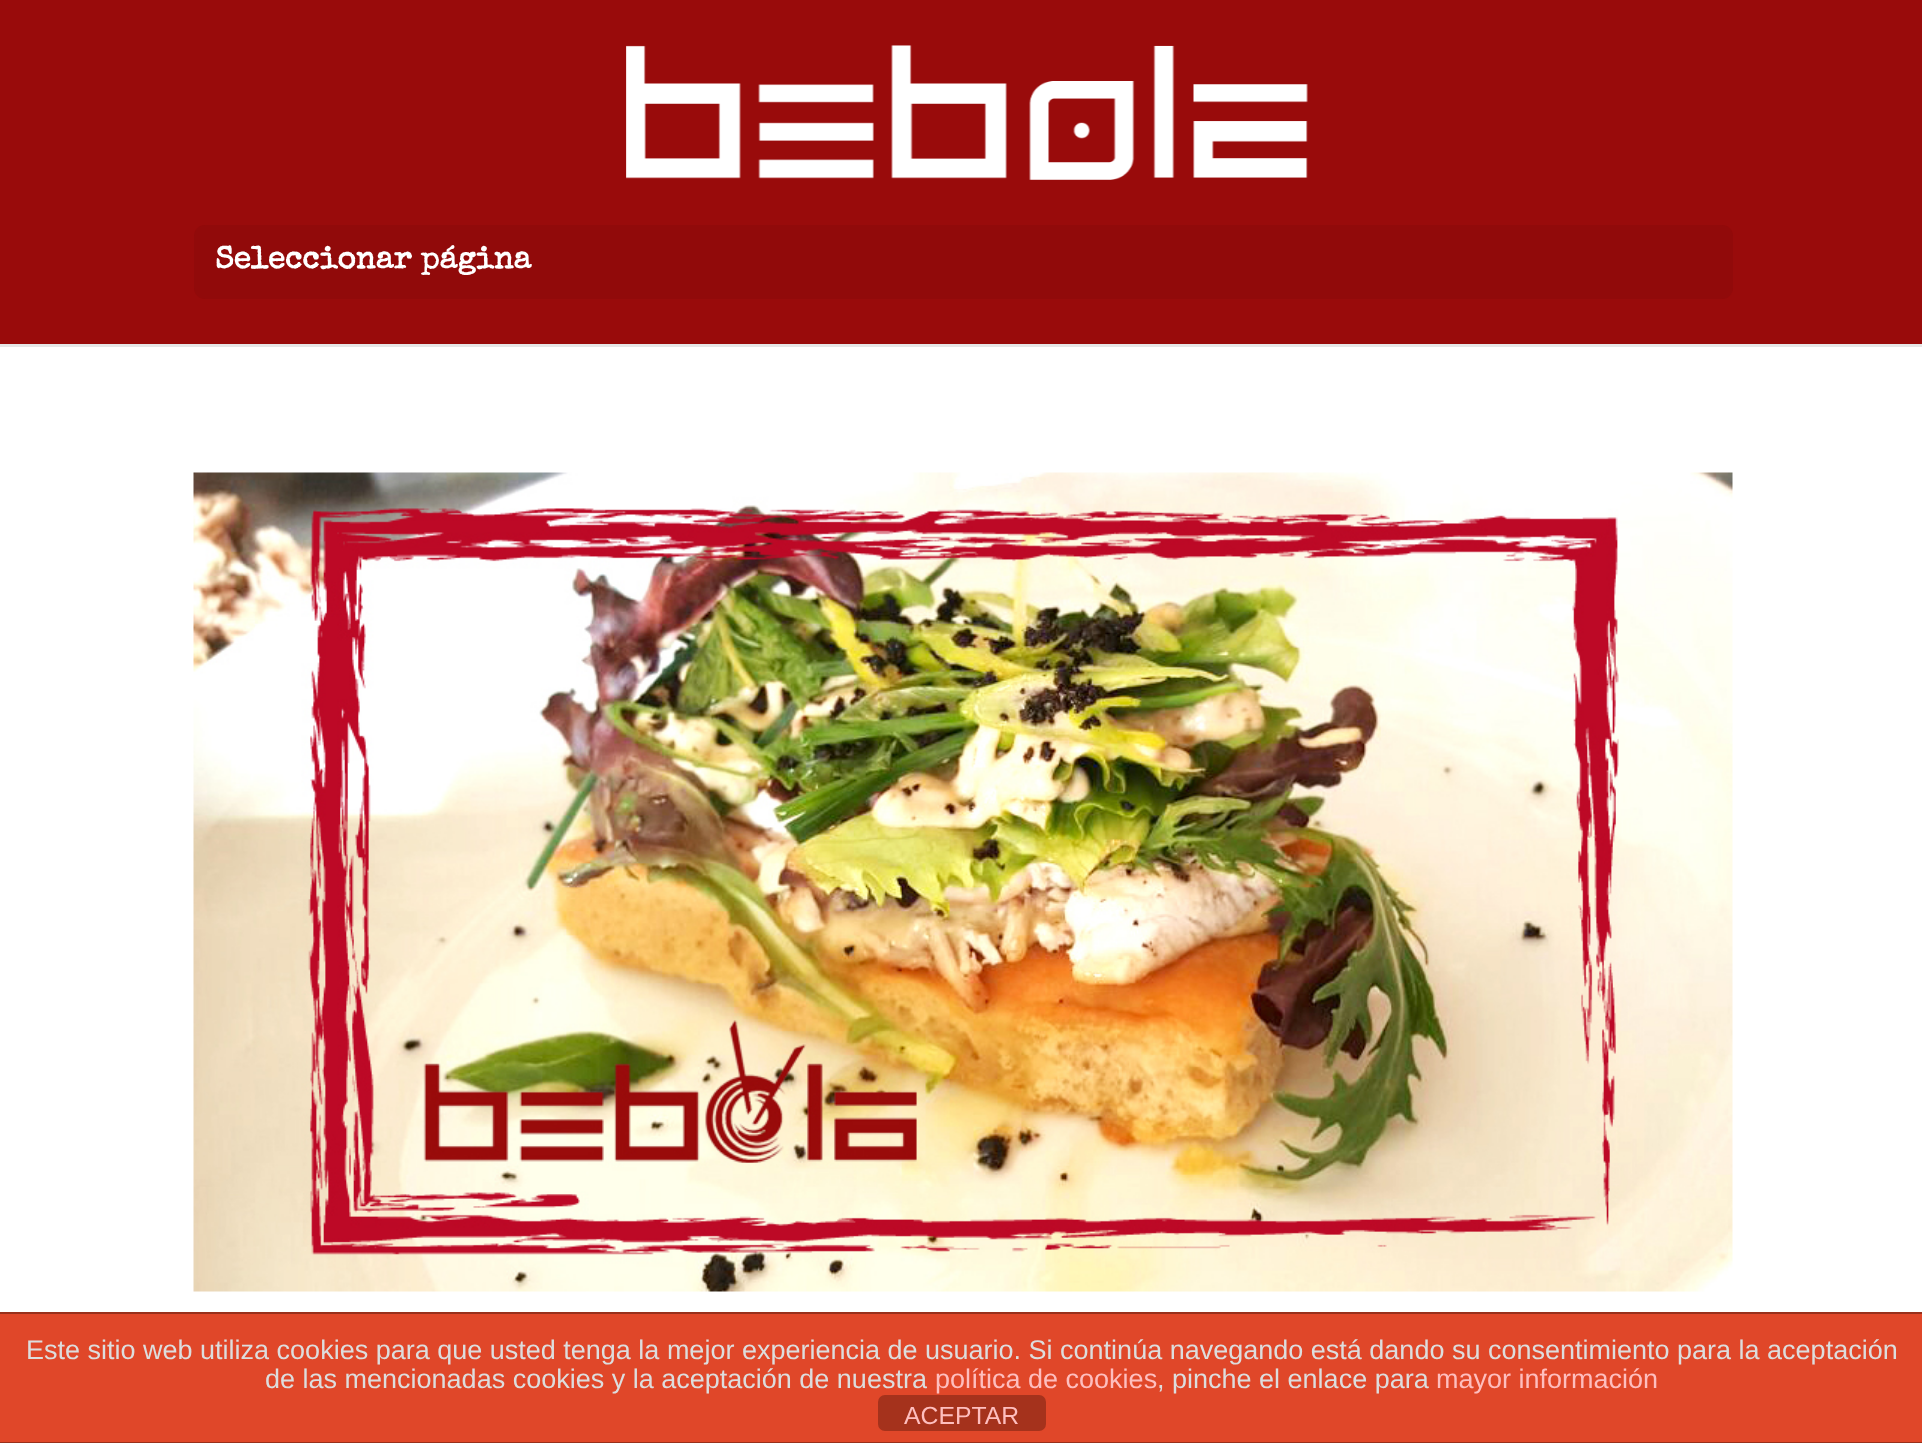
<!DOCTYPE html>
<meta charset="utf-8">
<style>body { margin: 0 } canvas { display: block }</style>
<canvas id="canvas" width="1922" height="1443"></canvas>
<script type="module">
  const canvas = document.getElementById("canvas");
  const g = canvas.getContext("2d");
  g.miterLimit = 4;
  g.fontKerning = "normal";
  function drawText(s, x, y, [font, color]) {
    g.font = font;
    g.fillStyle = color;
    g.fillText(s, x, y);
  }
  function fillBox(x, y, w, h, color) {
    g.fillStyle = color;
    g.fillRect(x, y, w, h);
  }
  function fillRounded(x, y, w, h, r, color) {
    g.fillStyle = color;
    g.beginPath();
    g.roundRect(x, y, w, h, r);
    g.fill();
  }
  async function drawPicture(src, x, y, w, h) {
    const img = new Image();
    img.src = src;
    await img.decode();
    g.drawImage(img, x, y, w, h);
  }

  const s1 = ["bold 31.5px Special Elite", "#FFFFFF"];
  const s2 = ["27px Liberation Sans", "#DDDDDD"];
  const s3 = ["27px Liberation Sans", "#FEBEBE"];
  const s4 = ["24.75px Liberation Sans", "#FEBEBE"];

  fillBox(0, 0, 1922, 1443, "#FFFFFF");
  g.fillStyle = "#E6E6E6";
  g.beginPath();
  g.moveTo(0, 344);
  g.lineTo(0, 347);
  g.lineTo(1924, 347);
  g.lineTo(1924, 2);
  g.lineTo(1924, 344);
  g.closePath();
  g.fill();
  fillBox(0, 0, 1922, 344, "#990B0B");
  await drawPicture("pic1.png", 626, 45, 682, 135);
  fillRounded(194, 225, 1539, 74, 11, "#910A0A");
  drawText("Seleccionar página", 215, 268, s1);
  await drawPicture("pic2.png", 193, 472, 1540, 820);
  fillBox(0, 1314, 1922, 128, "#E04729");
  fillBox(0, 1312, 1922, 2, "#99301B");
  fillBox(0, 1442, 1922, 1, "#99301B");
  drawText("Este sitio web utiliza cookies para que usted tenga la mejor experiencia de usuario. Si continúa navegando está dando su consentimiento para la aceptación", 26, 1359, s2);
  drawText("de las mencionadas cookies y la aceptación de nuestra", 265, 1388, s2);
  drawText("política de cookies", 935, 1388, s3);
  drawText(", pinche el enlace para", 1157, 1388, s2);
  drawText("mayor información", 1436, 1388, s3);
  fillRounded(878, 1395, 168, 36, 7, "#A5321C");
  drawText("ACEPTAR", 904, 1424, s4);
</script>
